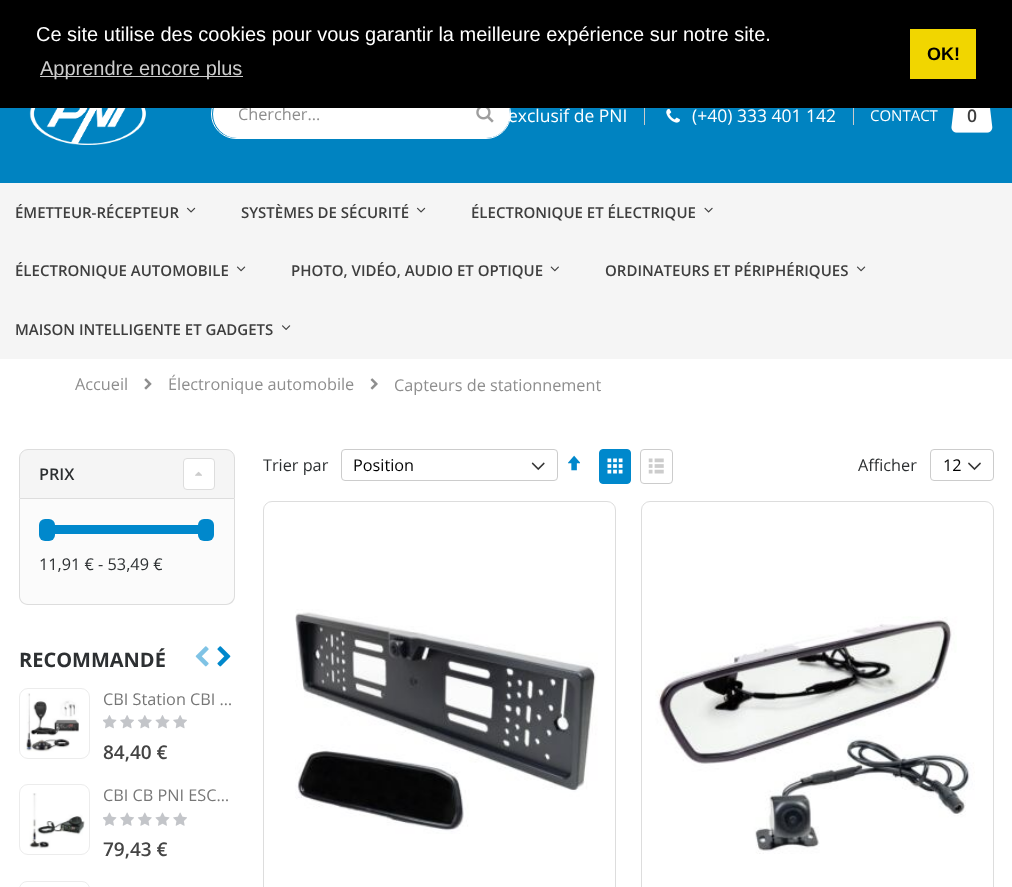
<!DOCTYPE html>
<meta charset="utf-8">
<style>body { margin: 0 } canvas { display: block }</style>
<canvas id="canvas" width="1012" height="887"></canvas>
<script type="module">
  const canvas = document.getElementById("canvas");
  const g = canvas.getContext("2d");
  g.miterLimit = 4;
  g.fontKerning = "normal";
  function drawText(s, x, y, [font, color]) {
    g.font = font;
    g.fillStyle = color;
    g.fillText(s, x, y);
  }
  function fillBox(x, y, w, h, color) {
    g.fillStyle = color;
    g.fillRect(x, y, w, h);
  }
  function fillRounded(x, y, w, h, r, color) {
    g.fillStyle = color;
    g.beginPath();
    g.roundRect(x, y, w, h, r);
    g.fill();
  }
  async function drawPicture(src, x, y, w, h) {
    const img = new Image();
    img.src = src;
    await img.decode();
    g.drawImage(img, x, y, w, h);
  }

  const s1 = ["16.25px Open Sans", "#8E8E8E"];
  const s2 = ["20px Liberation Sans", "#FFFFFF"];
  const s3 = ["20px Liberation Sans", "#CCCCCC"];
  const s4 = ["bold 18px Liberation Sans", "#000000"];
  const s5 = ["17.5px Open Sans", "#FFFFFF"];
  const s6 = ["15px Open Sans", "#FFFFFF"];
  const s7 = ["600 17.5px Open Sans", "#3E3E3E"];
  const s8 = ["600 15px Open Sans", "#3E3E3E"];
  const s9 = ["600 16.25px Open Sans", "#2D3032"];
  const s10 = ["16.25px Open Sans", "#2D3032"];
  const s11 = ["bold 20px Open Sans", "#2D3032"];
  const s12 = ["16.25px Open Sans", "#777777"];
  const s13 = ["600 19px Open Sans", "#444444"];
  const s14 = ["16.25px Open Sans", "#000000"];

  fillBox(0, 0, 1012, 887, "#FFFFFF");
  fillBox(0, 108, 1012, 75, "#0083C1");
  fillRounded(213, 90, 297, 48, 24, "#FFFFFF");
  g.beginPath();
  g.roundRect(211.5, 89.5, 299, 49, 24.5);
  g.strokeStyle = "#FFFFFF";
  g.stroke();
  drawText("Chercher...", 238, 120, s1);
  fillBox(0, 0, 1012, 108, "#000000");
  drawText("Ce site utilise des cookies pour vous garantir la meilleure expérience sur notre site.", 36, 41, s2);
  fillBox(40, 76, 203, 1, "#CCCCCC");
  drawText("Apprendre encore plus", 40, 75, s3);
  fillBox(910, 29, 66, 50, "#F1D600");
  drawText("OK!", 927, 60, s4);
  await drawPicture("pic1.png", 29, 108, 117, 37);
  await drawPicture("pic2.png", 476, 108, 18, 15);
  drawText("exclusif de PNI", 508, 122, s5);
  fillBox(644, 108, 1, 17, "#CCCCCC");
  await drawPicture("pic3.png", 666, 108, 14, 15);
  drawText("(+40) 333 401 142", 692, 122, s5);
  fillBox(853, 108, 1, 17, "#CCCCCC");
  drawText("CONTACT", 870, 121, s6);
  await drawPicture("pic4.png", 951, 108, 42, 25);
  drawText("0", 967, 122, s7);
  fillBox(0, 183, 1012, 176, "#F5F5F5");
  drawText("ÉMETTEUR-RÉCEPTEUR", 15, 218, s8);
  await drawPicture("pic5.png", 186, 207, 10, 6);
  drawText("SYSTÈMES DE SÉCURITÉ", 241, 218, s8);
  await drawPicture("pic5.png", 416, 207, 10, 6);
  drawText("ÉLECTRONIQUE ET ÉLECTRIQUE", 471, 218, s8);
  await drawPicture("pic6.png", 704, 207, 9, 6);
  drawText("ÉLECTRONIQUE AUTOMOBILE", 15, 276, s8);
  await drawPicture("pic7.png", 236, 266, 10, 6);
  drawText("PHOTO, VIDÉO, AUDIO ET OPTIQUE", 291, 276, s8);
  await drawPicture("pic8.png", 550, 266, 9, 6);
  drawText("ORDINATEURS ET PÉRIPHÉRIQUES", 605, 276, s8);
  await drawPicture("pic7.png", 856, 266, 10, 6);
  drawText("MAISON INTELLIGENTE ET GADGETS", 15, 335, s8);
  await drawPicture("pic9.png", 282, 325, 9, 5);
  drawText("Accueil", 75, 390, s1);
  await drawPicture("pic10.png", 144, 378, 8, 12);
  drawText("Électronique automobile", 168, 390, s1);
  await drawPicture("pic11.png", 370, 378, 8, 12);
  drawText("Capteurs de stationnement", 394, 391, s1);
  g.fillStyle = "#F5F5F5";
  g.beginPath();
  g.roundRect(19.5, 449.5, 215, 49, [8.5, 8.5, 0, 0]);
  g.fill();
  g.strokeStyle = "#DDDDDD";
  g.stroke();
  drawText("PRIX", 39, 480, s9);
  g.fillStyle = "#FFFFFF";
  g.beginPath();
  g.roundRect(183.5, 458.5, 31, 31, 3.5);
  g.fill();
  g.stroke();
  await drawPicture("pic12.png", 195, 471, 7, 5);
  g.fillStyle = "#FBFBFB";
  g.beginPath();
  g.roundRect(19, 499, 216, 106, [0, 0, 9, 9]);
  g.fill();
  g.fillStyle = "#DDDDDD";
  g.beginPath();
  g.moveTo(19, 499);
  g.lineTo(235, 499);
  g.lineTo(235, 596);
  g.bezierCurveTo(235, 601, 231, 605, 226, 605);
  g.lineTo(28, 605);
  g.bezierCurveTo(23, 605, 19, 601, 19, 596);
  g.closePath();
  g.moveTo(20, 499);
  g.lineTo(234, 499);
  g.lineTo(234, 596);
  g.bezierCurveTo(234, 600, 230, 604, 226, 604);
  g.lineTo(28, 604);
  g.bezierCurveTo(23, 604, 20, 600, 20, 596);
  g.closePath();
  g.fill("evenodd");
  fillBox(55, 525, 143, 9, "#0088CC");
  fillRounded(39, 519, 16, 22, 6, "#0088CC");
  fillRounded(198, 519, 16, 22, 6, "#0088CC");
  drawText("11,91 € - 53,49 €", 39, 570, s10);
  drawText("RECOMMANDÉ", 19, 667, s11);
  await drawPicture("pic13.png", 195, 646, 14, 21);
  await drawPicture("pic14.png", 217, 646, 14, 21);
  g.beginPath();
  g.roundRect(19.5, 688.5, 70, 70, 8.5);
  g.strokeStyle = "#ECECEC";
  g.stroke();
  await drawPicture("pic15.png", 24, 693, 55, 59);
  drawText("CBI Station CBI …", 103, 705, s12);
  await drawPicture("pic16.png", 103, 715, 84, 14);
  drawText("84,40 €", 103, 759, s13);
  g.beginPath();
  g.roundRect(19.5, 784.5, 70, 70, 8.5);
  g.stroke();
  await drawPicture("pic17.png", 29, 793, 56, 56);
  drawText("CBI CB PNI ESC…", 103, 801, s12);
  await drawPicture("pic18.png", 103, 812, 84, 14);
  drawText("79,43 €", 103, 856, s13);
  g.beginPath();
  g.roundRect(19.5, 881.5, 70, 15, 8.5);
  g.stroke();
  drawText("Trier par", 263, 471, s10);
  await drawPicture("pic19.png", 531, 462, 14, 9);
  g.beginPath();
  g.roundRect(341.5, 449.5, 216, 31, 3.5);
  g.strokeStyle = "#CCCCCC";
  g.stroke();
  drawText("Position", 353, 471, s14);
  await drawPicture("pic20.png", 568, 455, 12, 16);
  g.fillStyle = "#0088CC";
  g.beginPath();
  g.roundRect(599.5, 449.5, 31, 34, 3.5);
  g.fill();
  g.strokeStyle = "#0088CC";
  g.stroke();
  await drawPicture("pic21.png", 607, 458, 16, 16);
  g.beginPath();
  g.roundRect(640.5, 449.5, 32, 34, 3.5);
  g.strokeStyle = "#CCCCCC";
  g.stroke();
  await drawPicture("pic22.png", 648, 458, 16, 16);
  drawText("Afficher", 858, 471, s10);
  await drawPicture("pic23.png", 968, 462, 13, 9);
  g.beginPath();
  g.roundRect(930.5, 449.5, 63, 31, 3.5);
  g.stroke();
  drawText("12", 943, 471, s14);
  g.beginPath();
  g.roundRect(263.5, 501.5, 352, 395, 8.5);
  g.strokeStyle = "#DDDDDD";
  g.stroke();
  await drawPicture("pic24.png", 295, 609, 303, 225);
  g.beginPath();
  g.roundRect(641.5, 501.5, 352, 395, 8.5);
  g.stroke();
  await drawPicture("pic25.png", 655, 616, 320, 238);
</script>
